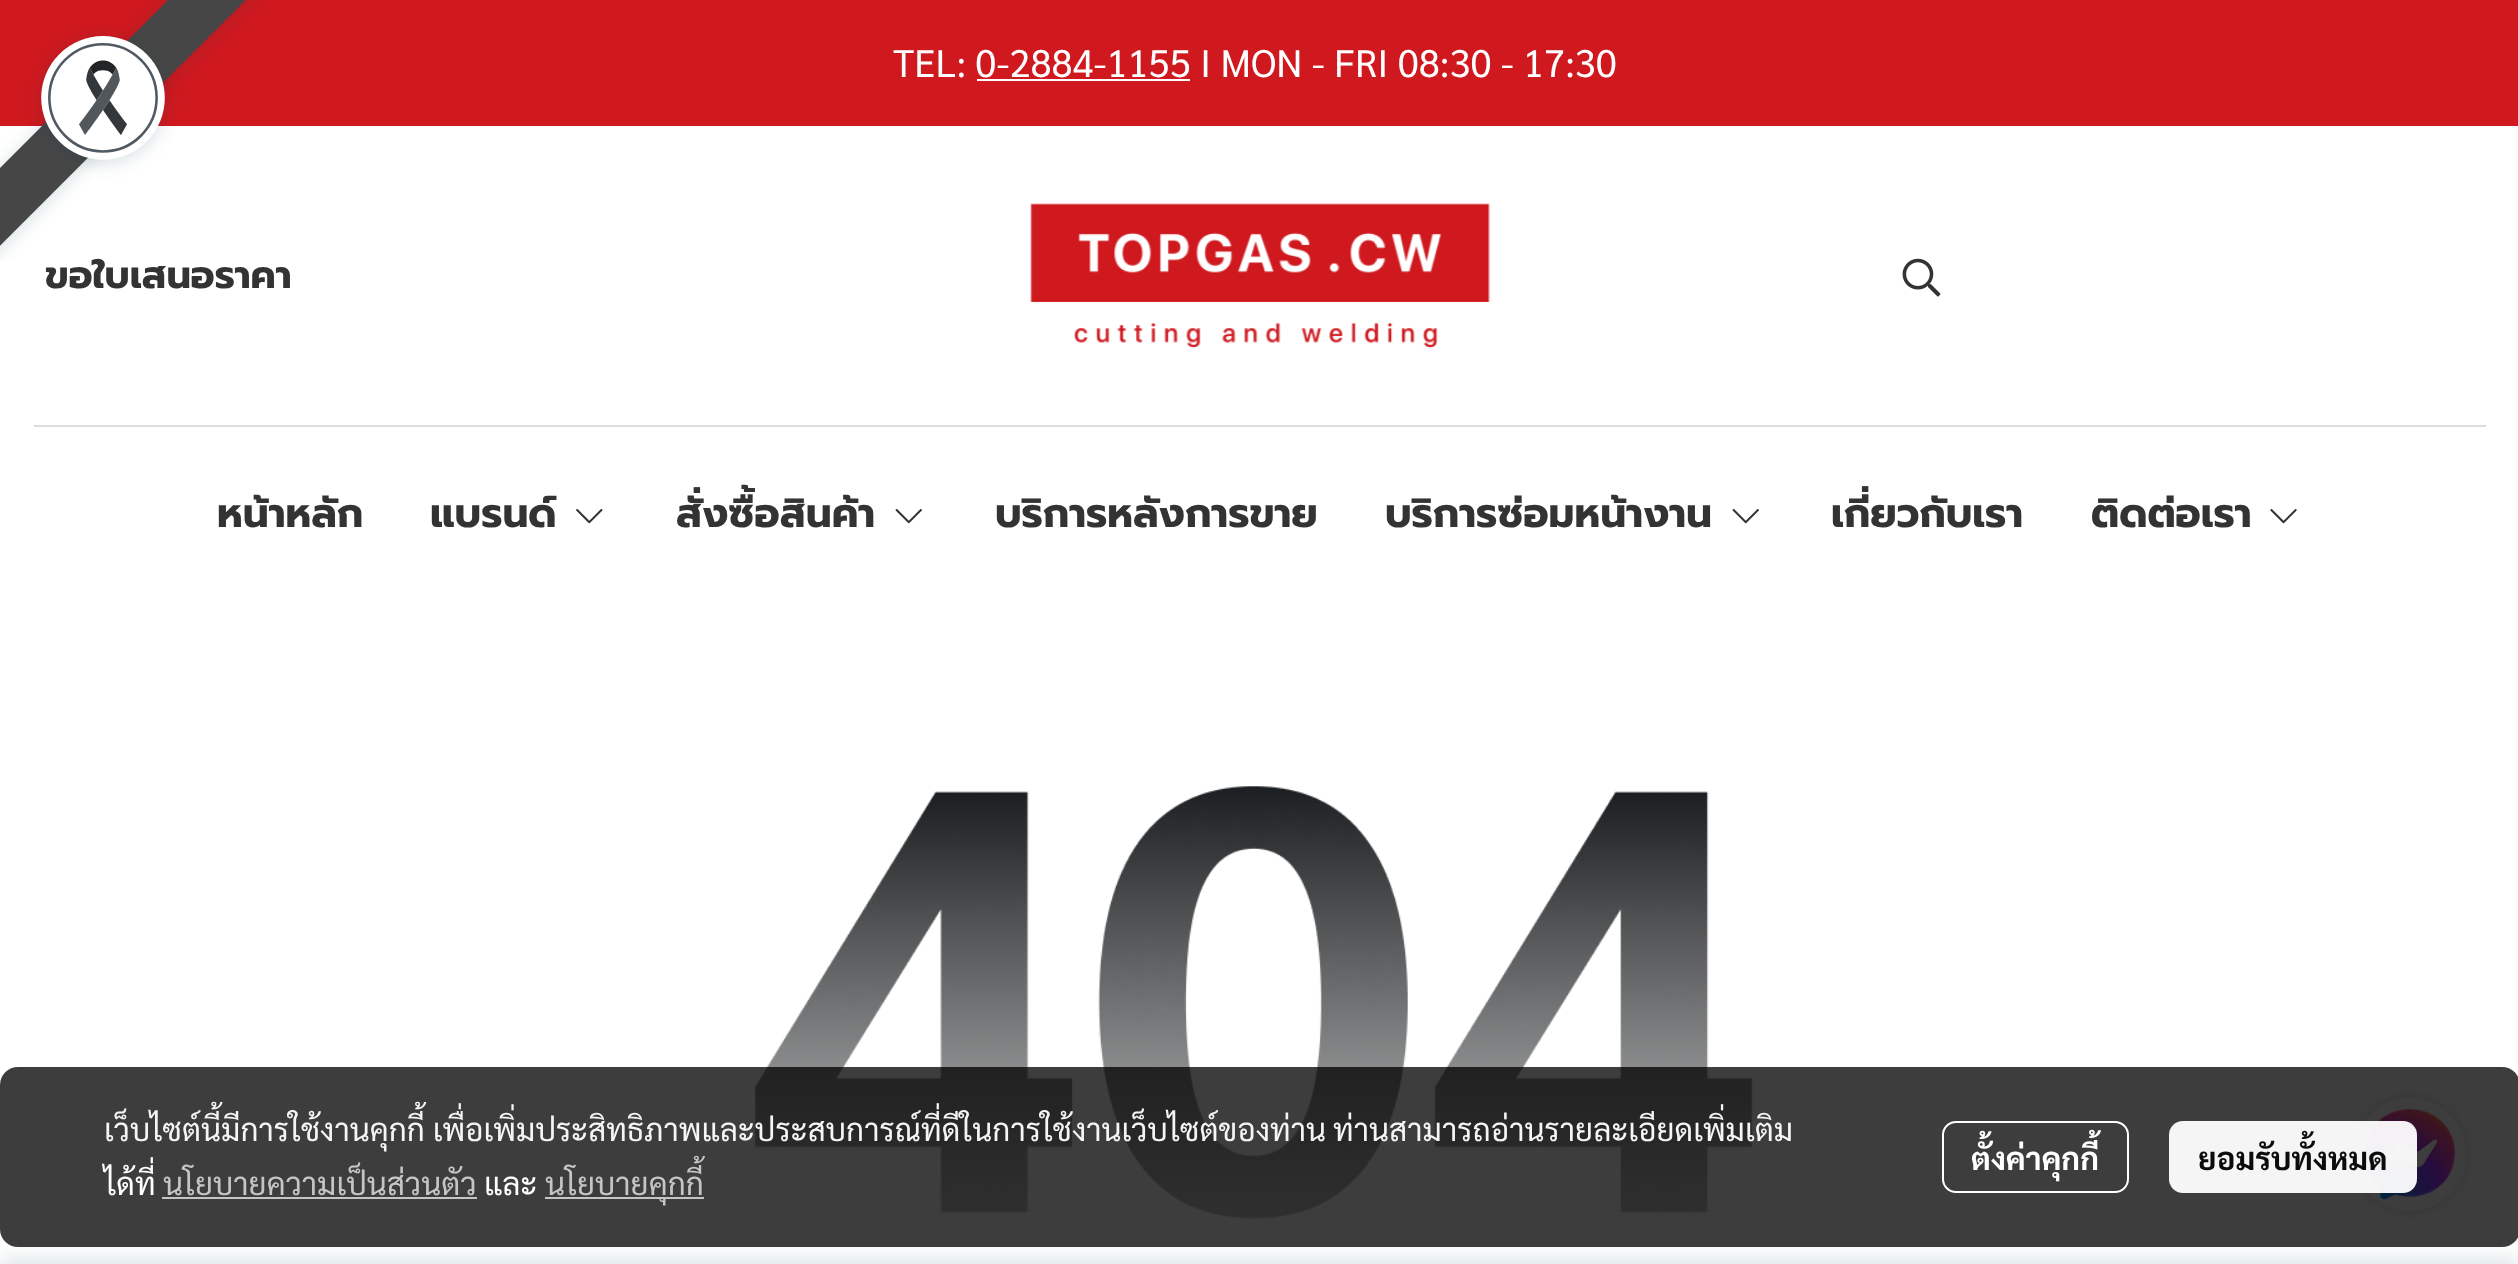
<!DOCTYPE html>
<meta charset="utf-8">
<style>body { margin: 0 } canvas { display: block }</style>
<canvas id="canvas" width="2518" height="1264"></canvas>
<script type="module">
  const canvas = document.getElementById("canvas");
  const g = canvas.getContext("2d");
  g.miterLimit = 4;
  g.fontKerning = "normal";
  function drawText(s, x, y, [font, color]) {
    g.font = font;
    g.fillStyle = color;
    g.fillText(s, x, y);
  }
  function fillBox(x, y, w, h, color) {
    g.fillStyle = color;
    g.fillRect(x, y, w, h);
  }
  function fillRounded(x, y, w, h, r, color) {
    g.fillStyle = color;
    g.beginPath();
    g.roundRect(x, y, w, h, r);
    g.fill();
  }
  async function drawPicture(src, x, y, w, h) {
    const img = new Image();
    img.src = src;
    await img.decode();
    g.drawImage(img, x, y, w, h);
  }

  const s1 = ["bold 38.25px Prompt", "#333333"];
  const s2 = ["38.25px Sarabun", "#FFFFFF"];
  const s3 = ["bold 40.5px Prompt", "#333333"];
  const s4 = ["31.5px Sarabun", "#F5F5F5"];
  const s5 = ["31.5px Sarabun", "#FFFFFF"];
  const s6 = ["31.5px Sarabun", "#C5C5C5"];
  const s7 = ["bold 31.5px Sarabun", "#FFFFFF"];
  const s8 = ["bold 31.5px Sarabun", "#0C0C0C"];

  fillBox(0, 0, 2518, 1264, "#FFFFFF");
  fillBox(0, 0, 2518, 126, "#CF191F");
  drawText("ขอใบเสนอราคา", 45, 288, s1);
  await drawPicture("pic1.png", 0, 0, 262, 262);
  await drawPicture("pic2.png", 755, 786, 998, 433);
  g.fillStyle = "rgba(0, 0, 0, 0.14)";
  g.filter = "blur(8px)";
  g.beginPath();
  g.roundRect(2354, 1098, 112, 113, 56);
  g.fill();
  g.filter = "none";
  fillRounded(2354, 1098, 112, 113, 56, "#FFFFFF");
  await drawPicture("pic3.png", 2364, 1109, 91, 91);
  drawText("TEL: 0-2884-1155 I MON - FRI 08:30 - 17:30", 893, 77, s2);
  fillBox(977, 79, 213, 2, "#FFFFFF");
  await drawPicture("pic4.png", 1030, 203, 461, 145);
  await drawPicture("pic5.png", 1902, 258, 39, 39);
  fillBox(34, 425, 2452, 2, "#DDDDDD");
  drawText("หน้าหลัก", 217, 527, s3);
  drawText("แบรนด์", 430, 527, s3);
  await drawPicture("pic6.png", 576, 509, 27, 15);
  drawText("สั่งซื้อสินค้า", 676, 527, s3);
  await drawPicture("pic7.png", 895, 509, 27, 15);
  drawText("บริการหลังการขาย", 995, 527, s3);
  drawText("บริการซ่อมหน้างาน", 1385, 527, s3);
  await drawPicture("pic7.png", 1732, 509, 27, 15);
  drawText("เกี่ยวกับเรา", 1831, 527, s3);
  drawText("ติดต่อเรา", 2091, 527, s3);
  await drawPicture("pic8.png", 2270, 509, 27, 15);
  g.fillStyle = "rgba(0, 53, 74, 0.15)";
  g.filter = "blur(11px)";
  g.beginPath();
  g.rect(0, 1260, 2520, 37);
  g.fill();
  g.filter = "none";
  fillRounded(0, 1067, 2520, 180, 18, "rgba(0, 0, 0, 0.76)");
  drawText("เว็บไซต์นี้มีการใช้งานคุกกี้ เพื่อเพิ่มประสิทธิภาพและประสบการณ์ที่ดีในการใช้งานเว็บไซต์ของท่าน", 104, 1141, s4);
  drawText("ท่านสามารถอ่านรายละเอียดเพิ่มเติม", 1333, 1141, s4);
  drawText("ได้ที่", 104, 1195, s5);
  drawText("นโยบายความเป็นส่วนตัว", 163, 1195, s6);
  drawText("และ", 484, 1195, s5);
  fillBox(162, 1197, 315, 2, "#C5C5C5");
  fillBox(545, 1197, 159, 2, "#C5C5C5");
  drawText("นโยบายคุกกี้", 545, 1195, s6);
  g.beginPath();
  g.roundRect(1943, 1122, 185, 70, 13);
  g.strokeStyle = "#FFFFFF";
  g.lineWidth = 2;
  g.stroke();
  drawText("ตั้งค่าคุกกี้", 1971, 1170, s7);
  fillRounded(2169, 1121, 248, 72, 14, "rgba(255, 255, 255, 0.95)");
  drawText("ยอมรับทั้งหมด", 2198, 1170, s8);
</script>
